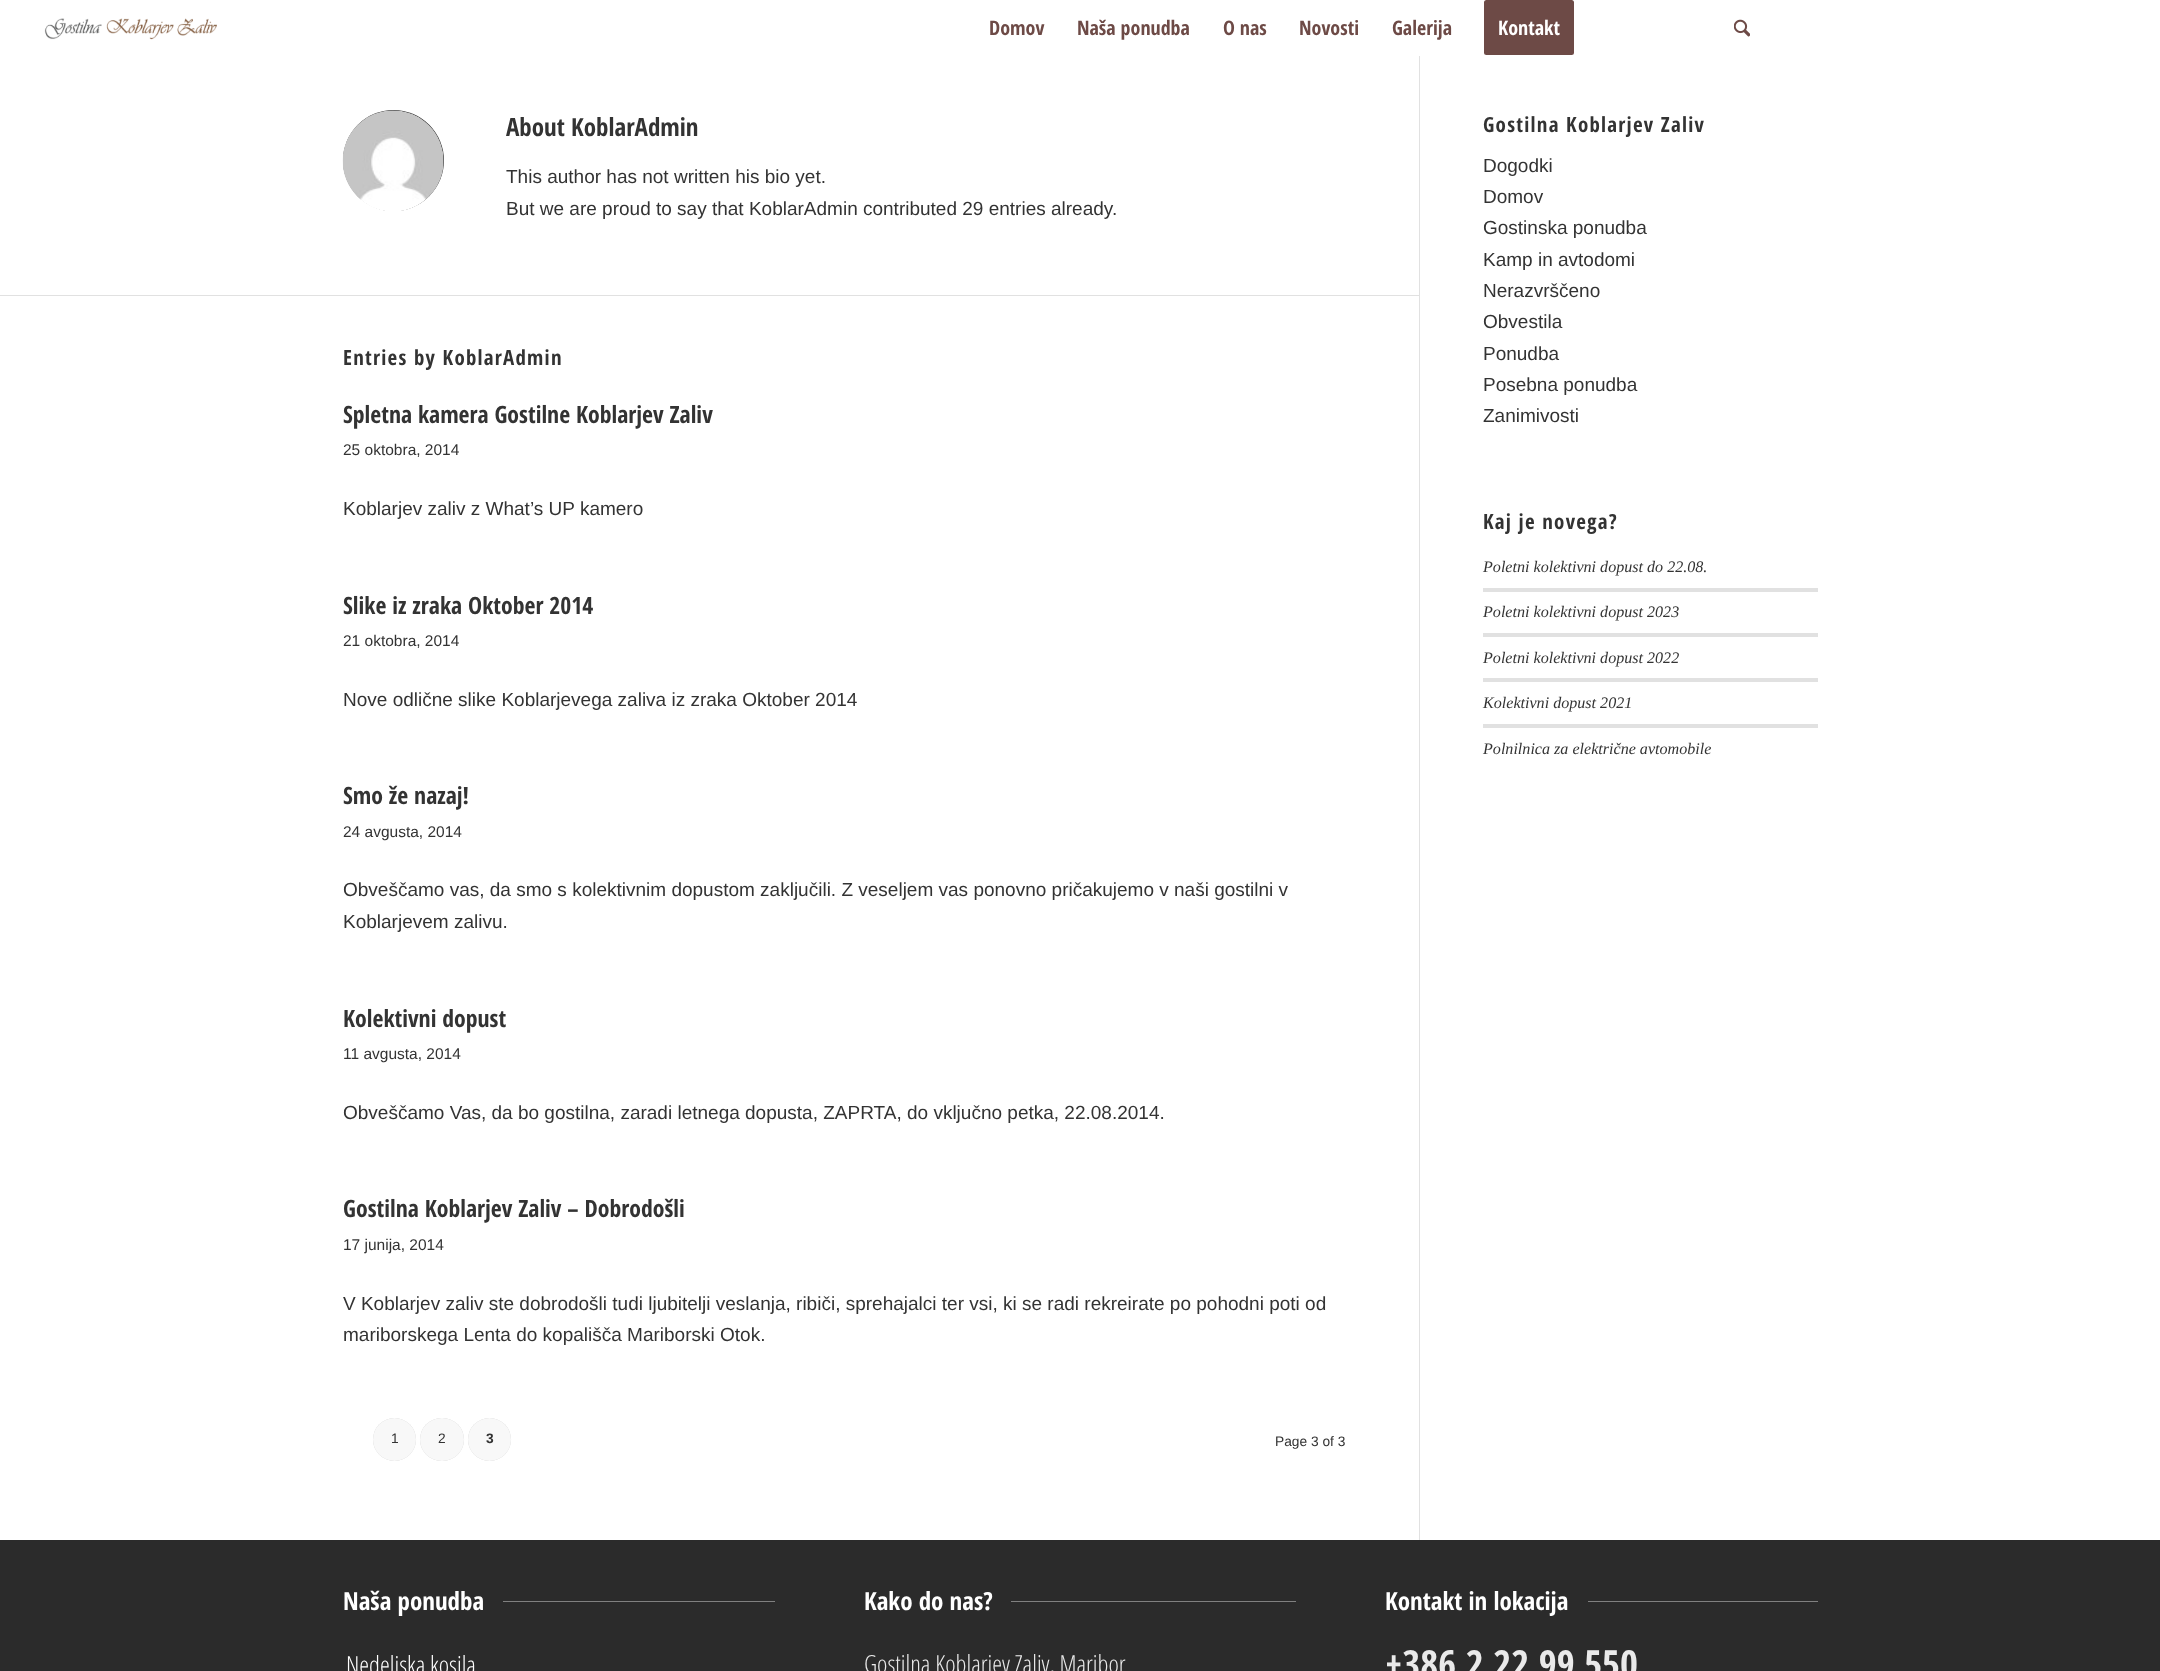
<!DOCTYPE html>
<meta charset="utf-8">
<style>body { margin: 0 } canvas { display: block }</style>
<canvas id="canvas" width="2160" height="1671"></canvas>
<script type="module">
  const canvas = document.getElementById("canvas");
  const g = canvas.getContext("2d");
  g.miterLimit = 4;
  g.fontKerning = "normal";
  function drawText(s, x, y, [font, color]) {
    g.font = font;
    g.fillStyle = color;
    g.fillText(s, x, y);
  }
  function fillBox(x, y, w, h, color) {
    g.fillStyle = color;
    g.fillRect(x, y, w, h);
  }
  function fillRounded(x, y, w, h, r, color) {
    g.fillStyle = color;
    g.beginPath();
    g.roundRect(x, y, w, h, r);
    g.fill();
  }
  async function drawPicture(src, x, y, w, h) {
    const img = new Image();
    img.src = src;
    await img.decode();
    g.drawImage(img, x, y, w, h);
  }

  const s1 = ["bold 20px Open Sans Condensed", "#6D4A46"];
  const s2 = ["bold 20px Open Sans Condensed", "#FFFFFF"];
  const s3 = ["bold 25px Open Sans Condensed", "#333333"];
  const s4 = ["19px Liberation Sans", "#333333"];
  const s5 = ["bold 20.9px Open Sans Condensed", "#333333"];
  const s6 = ["bold 23.75px Open Sans Condensed", "#333333"];
  const s7 = ["15.5px Liberation Sans", "#333333"];
  const s8 = ["13.75px Liberation Sans", "#333333"];
  const s9 = ["bold 13.75px Liberation Sans", "#333333"];
  const s10 = ["italic 16.1px Liberation Serif", "#333333"];
  const s11 = ["bold 25px Open Sans Condensed", "#FFFFFF"];
  const s12 = ["300 25px Open Sans Condensed", "#FFFFFF"];
  const s13 = ["300 25px Open Sans Condensed", "#EAEAEA"];
  const s14 = ["bold 38.75px Open Sans Condensed", "#EAEAEA"];

  fillBox(0, 0, 2160, 1671, "#FFFFFF");
  await drawPicture("pic1.png", 44, 18, 173, 22);
  drawText("Domov", 989, 35, s1);
  drawText("Naša ponudba", 1077, 35, s1);
  drawText("O nas", 1223, 35, s1);
  drawText("Novosti", 1299, 35, s1);
  drawText("Galerija", 1392, 35, s1);
  g.beginPath();
  g.roundRect(1485.5, 1.5, 87, 52, 1);
  g.fill();
  g.strokeStyle = "#6D4A46";
  g.lineWidth = 3;
  g.stroke();
  drawText("Kontakt", 1498, 35, s2);
  await drawPicture("pic2.png", 1734, 19, 16, 18);
  fillBox(1419, 48, 1, 1492, "#E1E1E1");
  fillBox(1419, 48, 1, 8, "#FFFFFF");
  g.fillStyle = "#333333";
  g.beginPath();
  g.arc(393.5, 160.5, 50.5, 0, Math.PI * 2);
  g.fill();
  await drawPicture("pic3.png", 342, 110, 102, 101);
  drawText("About KoblarAdmin", 506, 136, s3);
  drawText("This author has not written his bio yet.", 506, 183, s4);
  drawText("But we are proud to say that KoblarAdmin contributed 29 entries already.", 506, 215, s4);
  fillBox(0, 295, 1419, 1, "#E1E1E1");
  g.letterSpacing = "1.25px";
  drawText("Entries by KoblarAdmin", 343, 365, s5);
  g.letterSpacing = "0px";
  drawText("Spletna kamera Gostilne Koblarjev Zaliv", 343, 423, s6);
  drawText("25 oktobra, 2014", 343, 455, s7);
  drawText("Koblarjev zaliv z What’s UP kamero", 343, 515, s4);
  drawText("Slike iz zraka Oktober 2014", 343, 614, s6);
  drawText("21 oktobra, 2014", 343, 646, s7);
  drawText("Nove odlične slike Koblarjevega zaliva iz zraka Oktober 2014", 343, 706, s4);
  drawText("Smo že nazaj!", 343, 804, s6);
  drawText("24 avgusta, 2014", 343, 837, s7);
  drawText("Obveščamo vas, da smo s kolektivnim dopustom zaključili. Z veseljem vas ponovno pričakujemo v naši gostilni v", 343, 896, s4);
  drawText("Koblarjevem zalivu.", 343, 928, s4);
  drawText("Kolektivni dopust", 343, 1027, s6);
  drawText("11 avgusta, 2014", 343, 1059, s7);
  drawText("Obveščamo Vas, da bo gostilna, zaradi letnega dopusta, ZAPRTA, do vključno petka, 22.08.2014.", 343, 1119, s4);
  drawText("Gostilna Koblarjev Zaliv – Dobrodošli", 343, 1217, s6);
  drawText("17 junija, 2014", 343, 1250, s7);
  drawText("V Koblarjev zaliv ste dobrodošli tudi ljubitelji veslanja, ribiči, sprehajalci ter vsi, ki se radi rekreirate po pohodni poti od", 343, 1310, s4);
  drawText("mariborskega Lenta do kopališča Mariborski Otok.", 343, 1341, s4);
  g.fillStyle = "rgba(0, 0, 0, 0.2)";
  g.filter = "blur(0.5px)";
  g.beginPath();
  g.roundRect(373, 1418, 43, 43, 21.5);
  g.fill();
  g.filter = "none";
  g.fillStyle = "#F8F8F8";
  g.beginPath();
  g.arc(394.5, 1439.5, 21.5, 0, Math.PI * 2);
  g.fill();
  drawText("1", 391, 1443, s8);
  g.fillStyle = "rgba(0, 0, 0, 0.2)";
  g.filter = "blur(0.5px)";
  g.beginPath();
  g.roundRect(420, 1418, 44, 43, 21.5);
  g.fill();
  g.filter = "none";
  fillRounded(420, 1418, 44, 43, 21.5, "#F8F8F8");
  drawText("2", 438, 1443, s8);
  g.fillStyle = "rgba(0, 0, 0, 0.2)";
  g.filter = "blur(0.5px)";
  g.beginPath();
  g.roundRect(468, 1418, 43, 43, 21.5);
  g.fill();
  g.filter = "none";
  g.fillStyle = "#F8F8F8";
  g.beginPath();
  g.arc(489.5, 1439.5, 21.5, 0, Math.PI * 2);
  g.fill();
  drawText("3", 486, 1443, s9);
  drawText("Page 3 of 3", 1275, 1446, s8);
  g.letterSpacing = "1.25px";
  drawText("Gostilna Koblarjev Zaliv", 1483, 132, s5);
  g.letterSpacing = "0px";
  drawText("Dogodki", 1483, 172, s4);
  drawText("Domov", 1483, 203, s4);
  drawText("Gostinska ponudba", 1483, 234, s4);
  drawText("Kamp in avtodomi", 1483, 266, s4);
  drawText("Nerazvrščeno", 1483, 297, s4);
  drawText("Obvestila", 1483, 328, s4);
  drawText("Ponudba", 1483, 360, s4);
  drawText("Posebna ponudba", 1483, 391, s4);
  drawText("Zanimivosti", 1483, 422, s4);
  g.letterSpacing = "1.25px";
  drawText("Kaj je novega?", 1483, 529, s5);
  g.letterSpacing = "0px";
  drawText("Poletni kolektivni dopust do 22.08.", 1483, 572, s10);
  fillBox(1483, 588, 335, 4, "#E1E1E1");
  drawText("Poletni kolektivni dopust 2023", 1483, 617, s10);
  fillBox(1483, 633, 335, 4, "#E1E1E1");
  drawText("Poletni kolektivni dopust 2022", 1483, 663, s10);
  fillBox(1483, 678, 335, 4, "#E1E1E1");
  drawText("Kolektivni dopust 2021", 1483, 708, s10);
  fillBox(1483, 724, 335, 4, "#E1E1E1");
  drawText("Polnilnica za električne avtomobile", 1483, 754, s10);
  fillBox(0, 1540, 2160, 131, "#2B2B2B");
  drawText("Naša ponudba", 343, 1610, s11);
  fillBox(503, 1601, 272, 1, "#808080");
  drawText("Nedeljska kosila", 346, 1674, s12);
  drawText("Kako do nas?", 864, 1610, s11);
  fillBox(1011, 1601, 285, 1, "#808080");
  drawText("Gostilna Koblarjev Zaliv, Maribor", 864, 1673, s13);
  drawText("Kontakt in lokacija", 1385, 1610, s11);
  fillBox(1588, 1601, 230, 1, "#808080");
  drawText("+386 2 22 99 550", 1385, 1678, s14);
</script>
